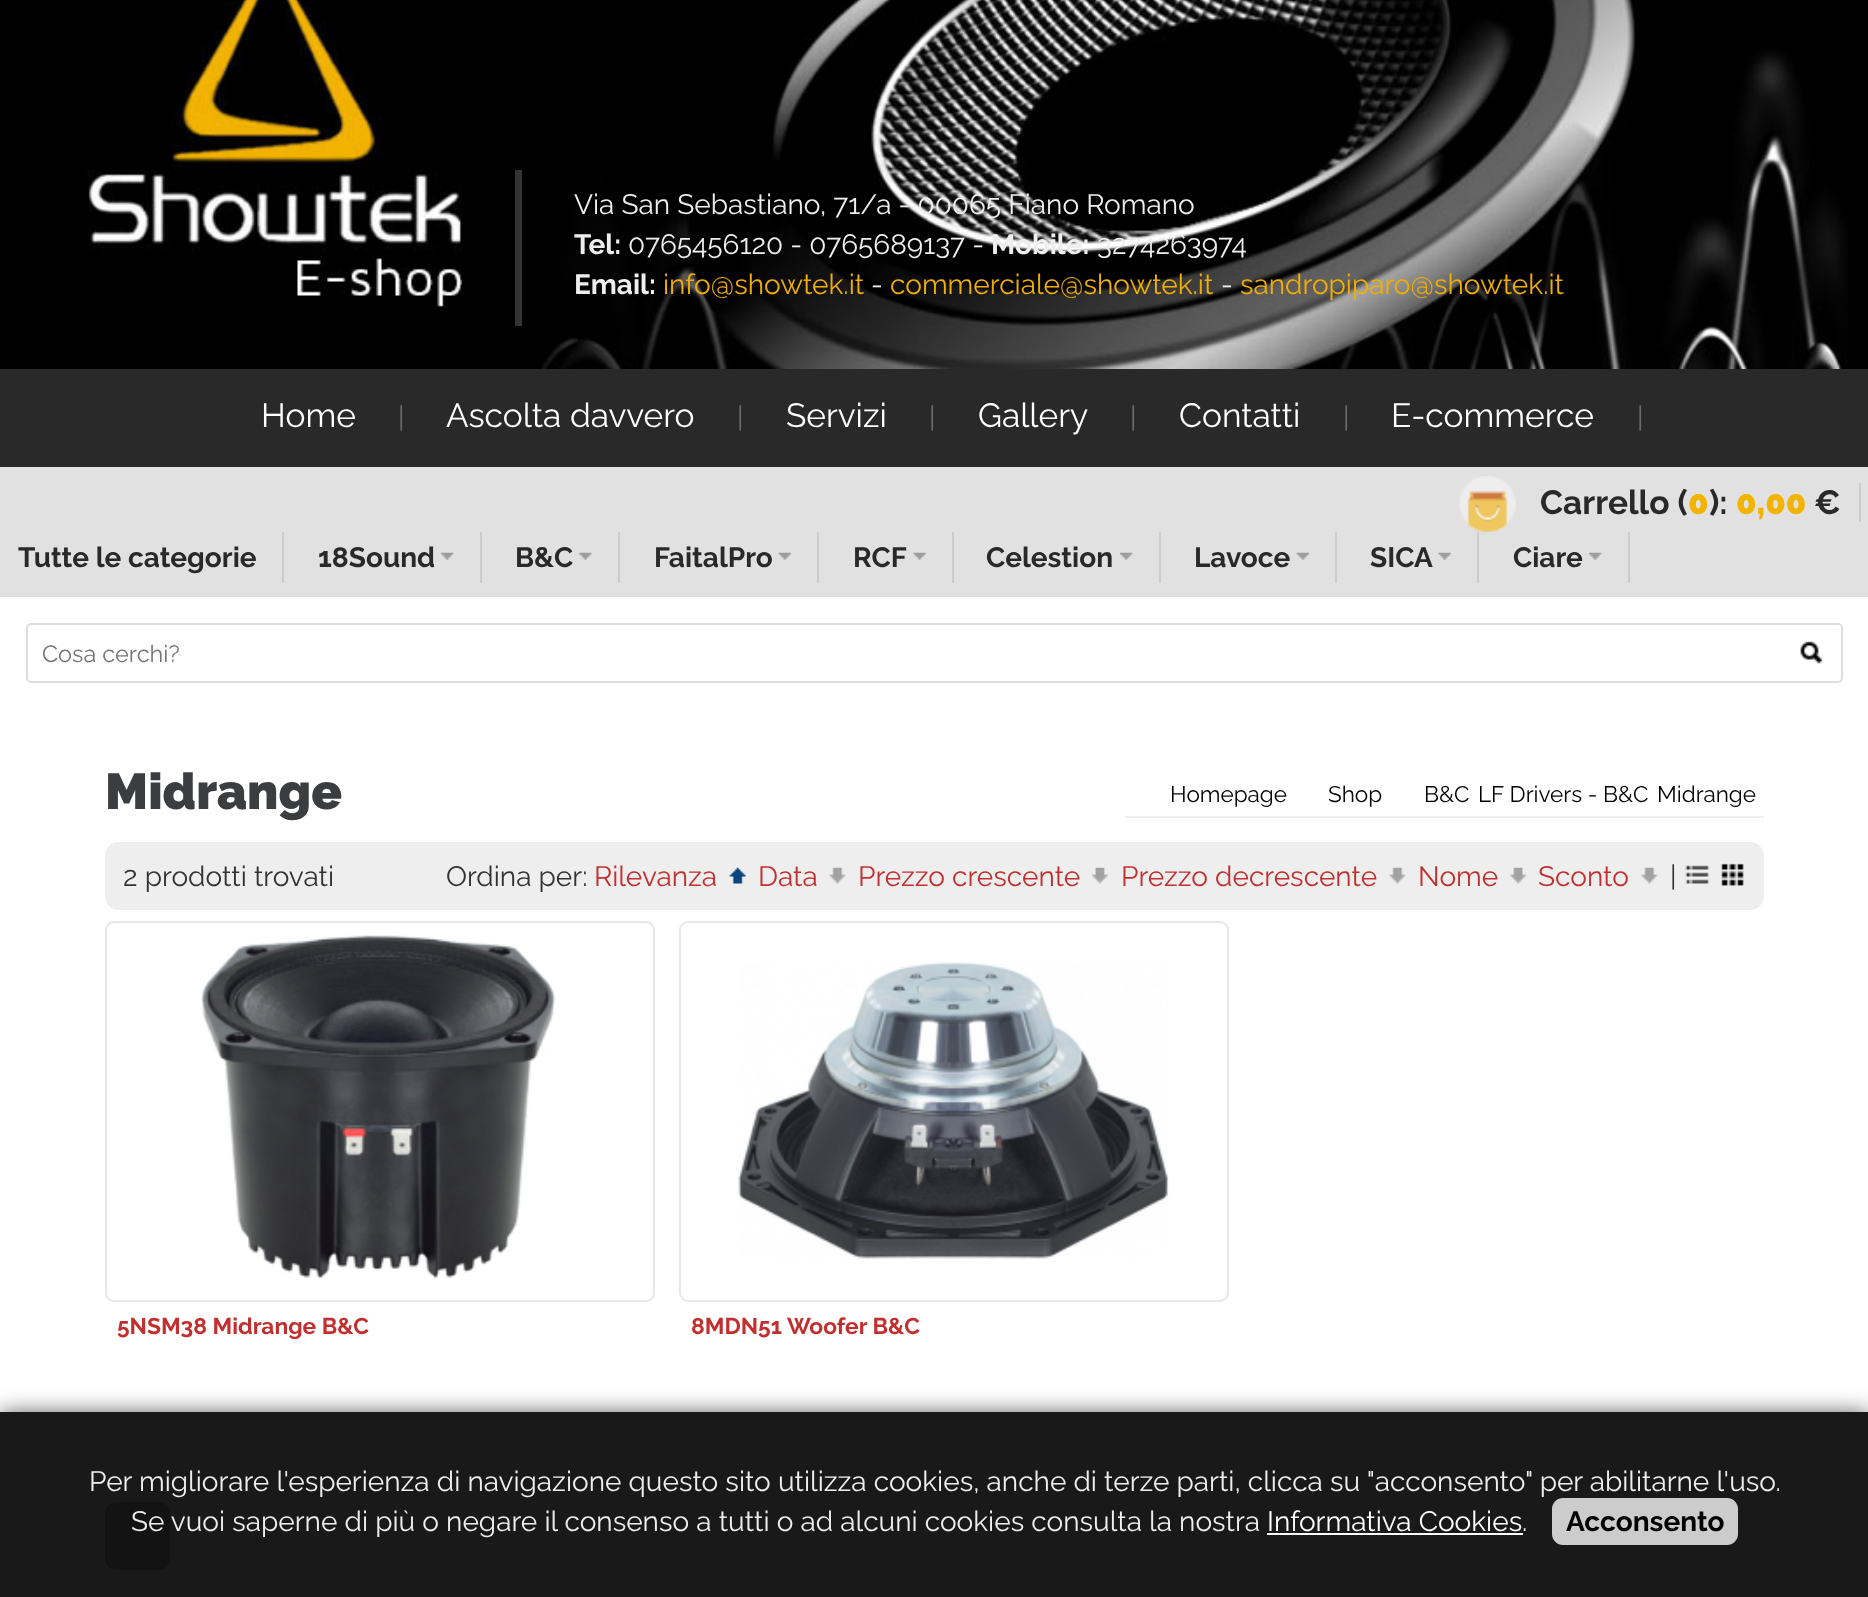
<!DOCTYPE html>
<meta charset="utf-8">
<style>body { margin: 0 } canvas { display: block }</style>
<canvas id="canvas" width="1868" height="1597"></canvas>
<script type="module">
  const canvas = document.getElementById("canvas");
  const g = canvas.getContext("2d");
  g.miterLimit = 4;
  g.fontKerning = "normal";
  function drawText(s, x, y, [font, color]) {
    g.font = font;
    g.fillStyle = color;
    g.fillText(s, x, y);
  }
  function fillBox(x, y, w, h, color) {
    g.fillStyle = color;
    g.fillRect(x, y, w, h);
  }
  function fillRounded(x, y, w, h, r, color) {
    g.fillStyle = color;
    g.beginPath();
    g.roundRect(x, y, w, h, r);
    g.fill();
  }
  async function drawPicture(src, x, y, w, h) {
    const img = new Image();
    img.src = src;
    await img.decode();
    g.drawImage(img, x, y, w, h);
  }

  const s1 = ["28px Raleway", "#EEEEEE"];
  const s2 = ["bold 28px Raleway", "#EEEEEE"];
  const s3 = ["28px Raleway", "#F2AE01"];
  const s4 = ["33.5px Raleway", "#FFFFFF"];
  const s5 = ["28px Raleway", "#6B6B6B"];
  const s6 = ["bold 33.5px Raleway", "#292929"];
  const s7 = ["900 33.5px Raleway", "#F2B401"];
  const s8 = ["bold 28px Raleway", "#292929"];
  const s9 = ["23.5px Raleway", "#757575"];
  const s10 = ["900 50.5px Raleway", "#3B3D3F"];
  const s11 = ["22.5px Raleway", "#000000"];
  const s12 = ["28px Raleway", "#333333"];
  const s13 = ["28px Raleway", "#C32F2F"];
  const s14 = ["bold 22.75px Raleway", "#C32F2F"];
  const s15 = ["28px Raleway", "#FFFFFF"];
  const s16 = ["bold 28px Raleway", "#000000"];

  fillBox(0, 0, 1868, 1597, "#FFFFFF");
  fillBox(0, 0, 1868, 369, "#000000");
  await drawPicture("pic1.png", 541, 0, 1307, 369);
  await drawPicture("pic2.png", 87, 0, 375, 308);
  fillBox(515, 170, 7, 156, "#333333");
  drawText("Via San Sebastiano, 71/a - 00065 Fiano Romano", 574, 214, s1);
  drawText("Tel:", 574, 254, s2);
  drawText("0765456120 - 0765689137 -", 628, 254, s1);
  drawText("Mobile:", 991, 254, s2);
  drawText("3274263974", 1097, 254, s1);
  drawText("Email:", 574, 294, s2);
  drawText("info@showtek.it", 663, 294, s3);
  drawText("-", 871, 294, s1);
  drawText("commerciale@showtek.it", 890, 294, s3);
  drawText("-", 1221, 294, s1);
  drawText("sandropiparo@showtek.it", 1240, 294, s3);
  fillBox(0, 369, 1868, 98, "#292929");
  drawText("Home", 261, 427, s4);
  drawText("|", 398, 427, s5);
  drawText("Ascolta davvero", 446, 427, s4);
  drawText("|", 737, 427, s5);
  drawText("Servizi", 786, 427, s4);
  drawText("|", 929, 427, s5);
  drawText("Gallery", 978, 427, s4);
  drawText("|", 1130, 427, s5);
  drawText("Contatti", 1179, 427, s4);
  drawText("|", 1343, 427, s5);
  drawText("E-commerce", 1391, 427, s4);
  drawText("|", 1637, 427, s5);
  fillBox(0, 467, 1868, 130, "#E1E1E1");
  await drawPicture("pic3.png", 1459, 476, 57, 56);
  fillBox(1859, 483, 2, 39, "#CCCCCC");
  drawText("Carrello (", 1540, 514, s6);
  drawText("0", 1688, 514, s7);
  drawText("):", 1709, 514, s6);
  drawText("0,00", 1736, 514, s7);
  drawText("€", 1814, 514, s6);
  fillBox(282, 532, 2, 51, "#CCCCCC");
  drawText("Tutte le categorie", 18, 567, s8);
  fillBox(480, 532, 2, 51, "#CCCCCC");
  drawText("18Sound", 318, 567, s8);
  await drawPicture("pic4.png", 441, 552, 13, 8);
  fillBox(618, 532, 2, 51, "#CCCCCC");
  drawText("B&C", 515, 567, s8);
  await drawPicture("pic5.png", 579, 552, 13, 8);
  fillBox(817, 532, 2, 51, "#CCCCCC");
  drawText("FaitalPro", 654, 567, s8);
  await drawPicture("pic6.png", 778, 552, 13, 8);
  fillBox(952, 532, 2, 51, "#CCCCCC");
  drawText("RCF", 853, 567, s8);
  await drawPicture("pic7.png", 913, 552, 13, 8);
  fillBox(1159, 532, 2, 51, "#CCCCCC");
  drawText("Celestion", 986, 567, s8);
  await drawPicture("pic4.png", 1120, 552, 13, 8);
  fillBox(1335, 532, 2, 51, "#CCCCCC");
  drawText("Lavoce", 1194, 567, s8);
  await drawPicture("pic8.png", 1296, 552, 13, 8);
  fillBox(1477, 532, 2, 51, "#CCCCCC");
  drawText("SICA", 1370, 567, s8);
  await drawPicture("pic7.png", 1438, 552, 13, 8);
  fillBox(1628, 532, 2, 51, "#CCCCCC");
  drawText("Ciare", 1513, 567, s8);
  await drawPicture("pic4.png", 1589, 552, 13, 8);
  g.beginPath();
  g.roundRect(27, 624, 1815, 58, 4);
  g.strokeStyle = "#DDDDDD";
  g.lineWidth = 2;
  g.stroke();
  drawText("Cosa cerchi?", 42, 662, s9);
  await drawPicture("pic9.png", 1800, 641, 23, 23);
  drawText("Midrange", 105, 809, s10);
  fillBox(1125, 816, 639, 2, "#EEEEEE");
  drawText("Homepage", 1170, 802, s11);
  drawText("Shop", 1328, 802, s11);
  drawText("B&C", 1424, 802, s11);
  drawText("LF Drivers - B&C", 1478, 802, s11);
  drawText("Midrange", 1657, 802, s11);
  fillRounded(105, 842, 1659, 68, 14, "#EEEEEE");
  drawText("2 prodotti trovati", 123, 886, s12);
  drawText("Ordina per:", 446, 886, s12);
  drawText("Rilevanza", 594, 886, s13);
  await drawPicture("pic10.png", 729, 867, 17, 17);
  drawText("Data", 758, 886, s13);
  await drawPicture("pic11.png", 829, 867, 17, 17);
  drawText("Prezzo crescente", 858, 886, s13);
  await drawPicture("pic12.png", 1091, 867, 18, 17);
  drawText("Prezzo decrescente", 1121, 886, s13);
  await drawPicture("pic13.png", 1389, 867, 17, 17);
  drawText("Nome", 1418, 886, s13);
  await drawPicture("pic14.png", 1510, 867, 17, 17);
  drawText("Sconto", 1538, 886, s13);
  await drawPicture("pic11.png", 1641, 867, 17, 17);
  drawText("|", 1670, 886, s12);
  await drawPicture("pic15.png", 1685, 865, 24, 19);
  await drawPicture("pic16.png", 1721, 863, 23, 23);
  g.beginPath();
  g.roundRect(106, 922, 548, 379, 8);
  g.strokeStyle = "#E8E8E8";
  g.stroke();
  await drawPicture("pic17.png", 201, 935, 355, 344);
  drawText("5NSM38 Midrange B&C", 117, 1334, s14);
  g.beginPath();
  g.roundRect(680, 922, 548, 379, 8);
  g.stroke();
  await drawPicture("pic18.png", 738, 962, 431, 297);
  drawText("8MDN51", 691, 1334, s14);
  drawText("Woofer B&C", 787, 1334, s14);
  fillRounded(105, 1502, 65, 68, 11, "#BFBFBF");
  g.save();
  g.beginPath();
  g.moveTo(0, 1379);
  g.lineTo(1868, 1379);
  g.lineTo(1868, 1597);
  g.lineTo(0, 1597);
  g.closePath();
  g.moveTo(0, 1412);
  g.lineTo(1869, 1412);
  g.lineTo(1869, 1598);
  g.lineTo(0, 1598);
  g.closePath();
  g.clip("evenodd");
  g.fillStyle = "#666666";
  g.filter = "blur(10.5px)";
  g.beginPath();
  g.rect(0, 1412, 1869, 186);
  g.fill();
  g.filter = "none";
  g.restore();
  fillBox(0, 1412, 1868, 185, "rgba(0, 0, 0, 0.9)");
  drawText("Per migliorare l'esperienza di navigazione questo sito utilizza cookies, anche di terze parti, clicca su \"acconsento\" per abilitarne l'uso.", 89, 1491, s1);
  drawText("Se vuoi saperne di più o negare il consenso a tutti o ad alcuni cookies consulta la nostra", 131, 1531, s1);
  drawText("Informativa Cookies", 1267, 1531, s15);
  fillBox(1267, 1533, 256, 2, "#FFFFFF");
  drawText(".", 1522, 1531, s1);
  fillRounded(1552, 1498, 186, 47, 11, "#CCCCCC");
  drawText("Acconsento", 1566, 1531, s16);
</script>
